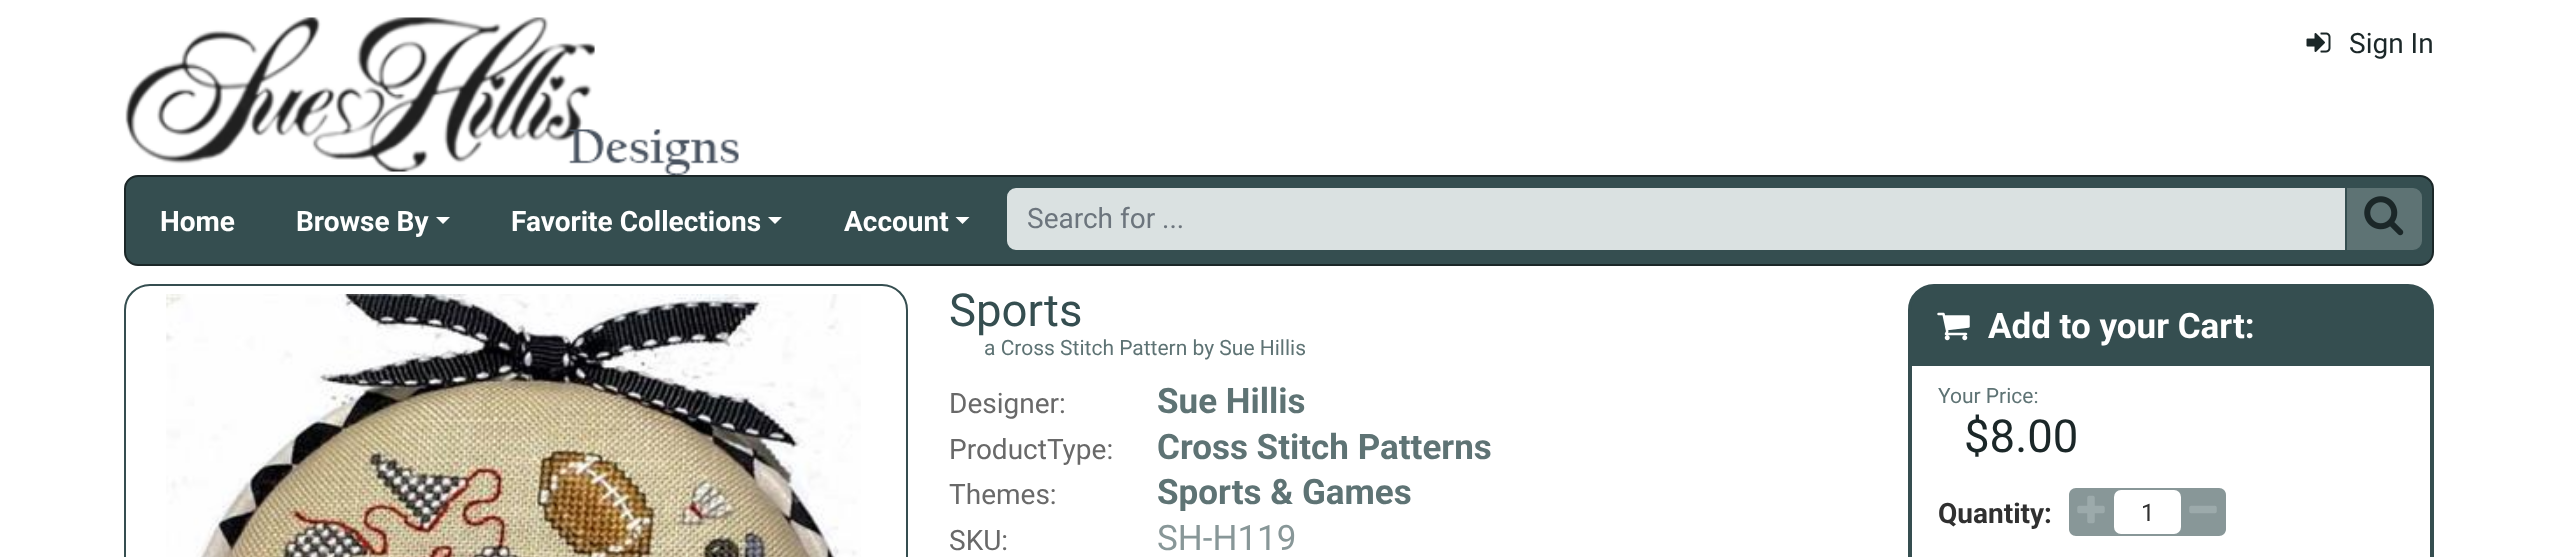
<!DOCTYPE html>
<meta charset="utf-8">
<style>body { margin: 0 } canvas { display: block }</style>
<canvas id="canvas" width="2556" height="557"></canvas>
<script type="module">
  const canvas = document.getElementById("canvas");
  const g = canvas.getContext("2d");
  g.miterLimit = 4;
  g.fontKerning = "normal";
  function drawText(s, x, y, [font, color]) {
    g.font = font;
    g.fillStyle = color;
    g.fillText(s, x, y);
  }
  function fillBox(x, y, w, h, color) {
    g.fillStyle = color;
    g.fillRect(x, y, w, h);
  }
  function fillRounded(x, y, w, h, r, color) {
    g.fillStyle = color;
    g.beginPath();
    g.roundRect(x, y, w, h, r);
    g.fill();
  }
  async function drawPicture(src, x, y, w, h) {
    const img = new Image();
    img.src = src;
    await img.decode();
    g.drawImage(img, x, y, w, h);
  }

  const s1 = ["28px Roboto", "#1B2728"];
  const s2 = ["bold 28px Roboto", "#FFFFFF"];
  const s3 = ["28px Roboto", "#6C757D"];
  const s4 = ["45.5px Roboto", "#354E50"];
  const s5 = ["21px Roboto", "#5E7374"];
  const s6 = ["28px Roboto", "#696969"];
  const s7 = ["bold 35px Roboto", "#5E7374"];
  const s8 = ["35px Roboto", "#889798"];
  const s9 = ["bold 35px Roboto", "#FFFFFF"];
  const s10 = ["45.5px Roboto", "#1B2728"];
  const s11 = ["bold 28px Roboto", "#303030"];
  const s12 = ["24px Roboto", "#303030"];

  fillBox(0, 0, 2556, 557, "#FFFFFF");
  await drawPicture("pic1.png", 125, 17, 614, 158);
  await drawPicture("pic2.png", 2306, 32, 25, 21);
  drawText("Sign In", 2349, 53, s1);
  g.fillStyle = "#354E50";
  g.beginPath();
  g.roundRect(125, 176, 2308, 89, 13);
  g.fill();
  g.strokeStyle = "#1B2728";
  g.lineWidth = 2;
  g.stroke();
  drawText("Home", 160, 231, s2);
  drawText("Browse By", 296, 231, s2);
  g.beginPath();
  g.moveTo(436, 217);
  g.lineTo(450, 217);
  g.lineTo(443, 224);
  g.closePath();
  g.fill();
  drawText("Favorite Collections", 511, 231, s2);
  g.beginPath();
  g.moveTo(768, 217);
  g.lineTo(782, 217);
  g.lineTo(775, 224);
  g.closePath();
  g.fill();
  drawText("Account", 844, 231, s2);
  g.beginPath();
  g.moveTo(955.5, 217);
  g.lineTo(969.5, 217);
  g.lineTo(962.5, 224);
  g.closePath();
  g.fill();
  g.fillStyle = "#DAE1E1";
  g.beginPath();
  g.roundRect(1006, 187, 1340, 64, [10, 0, 0, 10]);
  g.fill();
  g.strokeStyle = "#354E50";
  g.stroke();
  drawText("Search for ...", 1027, 228, s3);
  g.fillStyle = "#5E7374";
  g.beginPath();
  g.roundRect(2346, 187, 77, 64, [0, 10, 10, 0]);
  g.fill();
  g.stroke();
  await drawPicture("pic3.png", 2364, 196, 40, 40);
  g.beginPath();
  g.roundRect(125, 285, 782, 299, 25);
  g.stroke();
  await drawPicture("pic4.png", 166, 294, 695, 263);
  drawText("Sports", 949, 326, s4);
  drawText("a Cross Stitch Pattern by Sue Hillis", 984, 355, s5);
  drawText("Designer:", 949, 413, s6);
  drawText("Sue Hillis", 1157, 413, s7);
  drawText("ProductType:", 949, 459, s6);
  drawText("Cross Stitch Patterns", 1157, 459, s7);
  drawText("Themes:", 949, 504, s6);
  drawText("Sports & Games", 1157, 504, s7);
  drawText("SKU:", 949, 550, s6);
  drawText("SH-H119", 1157, 550, s8);
  g.beginPath();
  g.roundRect(1910, 286, 522, 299, 24);
  g.lineWidth = 4;
  g.stroke();
  g.fillStyle = "#354E50";
  g.beginPath();
  g.roundRect(1911, 287, 520, 79, [23, 23, 0, 0]);
  g.fill();
  await drawPicture("pic5.png", 1937, 312, 33, 29);
  drawText("Add to your Cart:", 1988, 338, s9);
  drawText("Your Price:", 1938, 403, s5);
  drawText("$8.00", 1964, 452, s10);
  drawText("Quantity:", 1938, 523, s11);
  g.fillStyle = "#889798";
  g.beginPath();
  g.moveTo(2076, 488);
  g.lineTo(2219, 488);
  g.bezierCurveTo(2223, 488, 2226, 491, 2226, 495);
  g.lineTo(2226, 529);
  g.bezierCurveTo(2226, 533, 2223, 536, 2219, 536);
  g.lineTo(2076, 536);
  g.bezierCurveTo(2072, 536, 2069, 533, 2069, 529);
  g.lineTo(2069, 495);
  g.bezierCurveTo(2069, 491, 2072, 488, 2076, 488);
  g.closePath();
  g.fill();
  await drawPicture("pic6.png", 2077, 495, 28, 29);
  fillRounded(2114, 490, 67, 44, 7, "#FFFFFF");
  drawText("1", 2141, 521, s12);
  await drawPicture("pic7.png", 2189, 505, 28, 9);
</script>
